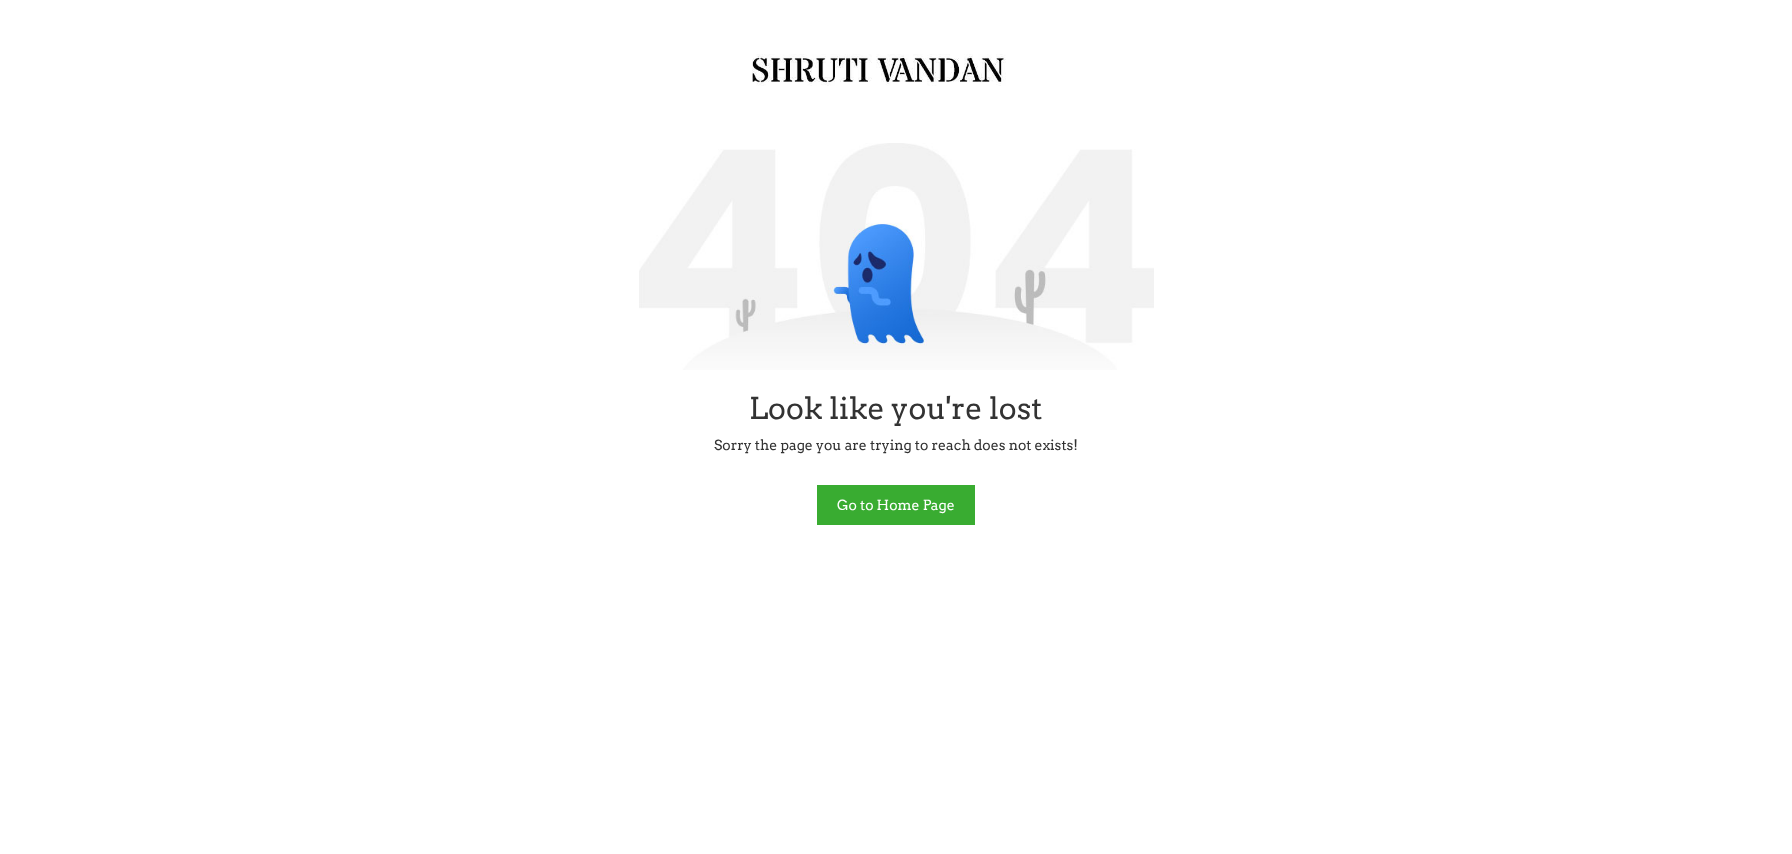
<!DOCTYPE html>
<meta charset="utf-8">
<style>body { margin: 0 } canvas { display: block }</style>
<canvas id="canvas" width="1792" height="854"></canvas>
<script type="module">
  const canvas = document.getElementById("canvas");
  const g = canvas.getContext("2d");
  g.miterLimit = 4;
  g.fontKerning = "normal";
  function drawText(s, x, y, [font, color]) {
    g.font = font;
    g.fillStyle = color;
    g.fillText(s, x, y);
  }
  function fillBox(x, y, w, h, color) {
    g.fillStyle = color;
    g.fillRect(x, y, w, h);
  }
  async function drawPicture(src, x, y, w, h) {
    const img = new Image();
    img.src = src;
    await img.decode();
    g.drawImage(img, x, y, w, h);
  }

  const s1 = ["30px Arvo", "#333333"];
  const s2 = ["14px Arvo", "#333333"];
  const s3 = ["14px Arvo", "#FFFFFF"];

  fillBox(0, 0, 1792, 854, "#FFFFFF");
  await drawPicture("pic1.png", 752, 54, 254, 32);
  await drawPicture("pic2.png", 639, 143, 515, 227);
  drawText("Look like you're lost", 749, 419, s1);
  drawText("Sorry the page you are trying to reach does not exists!", 714, 450, s2);
  fillBox(817, 485, 158, 40, "#39AC31");
  drawText("Go to Home Page", 837, 510, s3);
</script>
